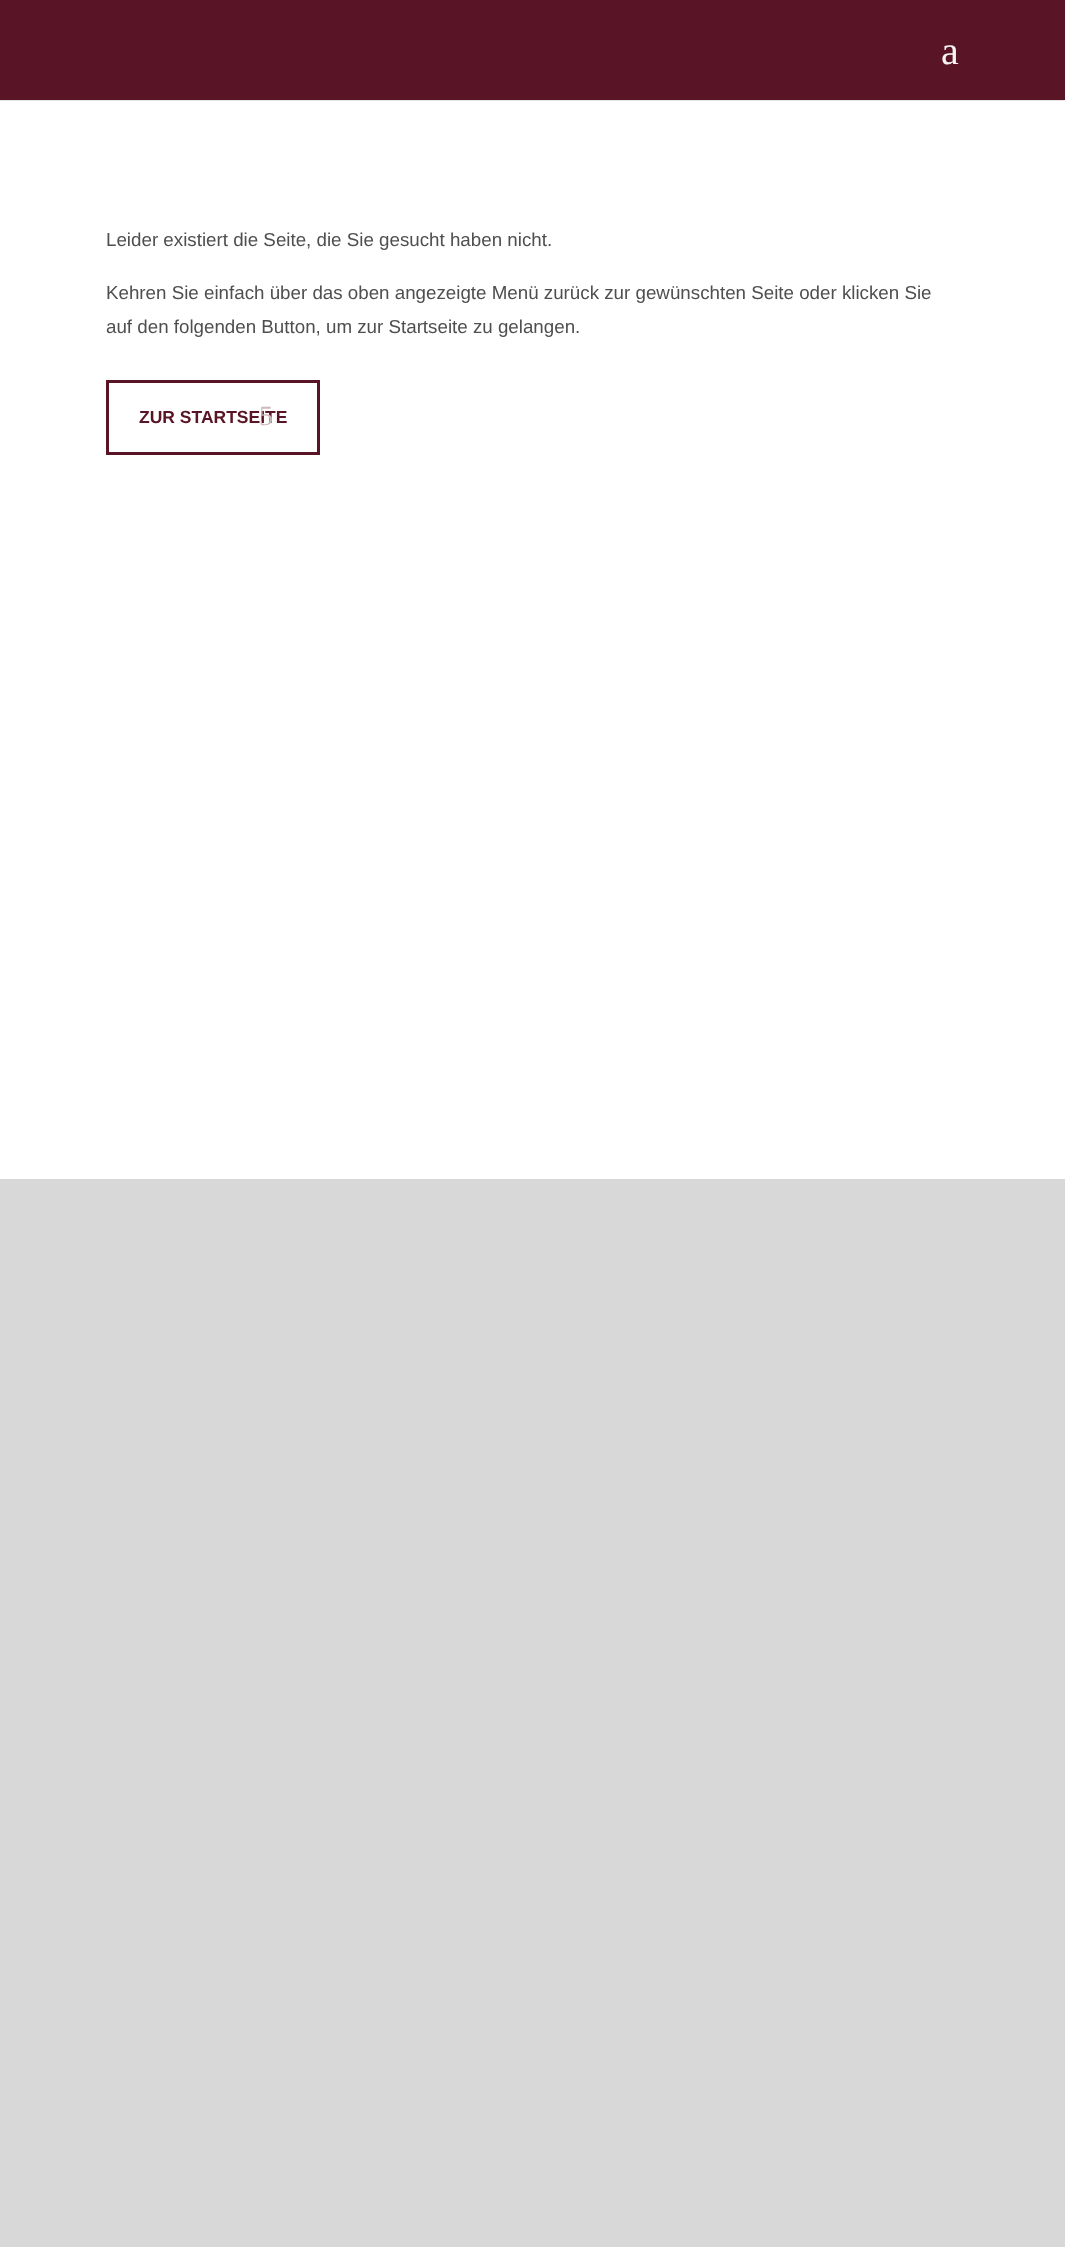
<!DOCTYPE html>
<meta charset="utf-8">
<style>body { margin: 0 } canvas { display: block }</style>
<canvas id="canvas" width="1065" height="2247"></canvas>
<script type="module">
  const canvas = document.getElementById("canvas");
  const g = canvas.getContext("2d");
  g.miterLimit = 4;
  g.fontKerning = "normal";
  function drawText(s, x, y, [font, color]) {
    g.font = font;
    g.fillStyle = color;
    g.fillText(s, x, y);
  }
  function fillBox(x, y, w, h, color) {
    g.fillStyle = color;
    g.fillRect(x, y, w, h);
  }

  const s1 = ["40px Liberation Serif", "#F5F5F5"];
  const s2 = ["18.75px Liberation Sans", "#4F4F4F"];
  const s3 = ["bold 17.5px Liberation Sans", "#591526"];
  const s4 = ["28px Liberation Serif", "#CDB8BE"];

  fillBox(0, 0, 1065, 2247, "#D8D8D8");
  fillBox(0, 100, 1065, 1, "#E6E6E6");
  fillBox(0, 0, 1065, 100, "#591526");
  drawText("a", 941, 64, s1);
  fillBox(0, 101, 1065, 1078, "#FFFFFF");
  drawText("Leider existiert die Seite, die Sie gesucht haben nicht.", 106, 246, s2);
  drawText("Kehren Sie einfach über das oben angezeigte Menü zurück zur gewünschten Seite oder klicken Sie", 106, 299, s2);
  drawText("auf den folgenden Button, um zur Startseite zu gelangen.", 106, 333, s2);
  g.strokeStyle = "#591526";
  g.lineWidth = 3;
  g.strokeRect(107.5, 381.5, 211, 72);
  drawText("ZUR STARTSEITE", 139, 423, s3);
  drawText("5", 259, 425, s4);
</script>
